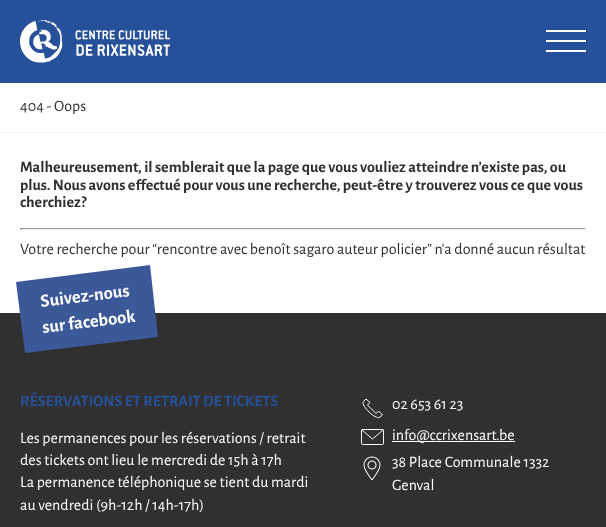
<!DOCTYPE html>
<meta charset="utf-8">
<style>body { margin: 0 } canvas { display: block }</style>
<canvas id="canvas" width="606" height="527"></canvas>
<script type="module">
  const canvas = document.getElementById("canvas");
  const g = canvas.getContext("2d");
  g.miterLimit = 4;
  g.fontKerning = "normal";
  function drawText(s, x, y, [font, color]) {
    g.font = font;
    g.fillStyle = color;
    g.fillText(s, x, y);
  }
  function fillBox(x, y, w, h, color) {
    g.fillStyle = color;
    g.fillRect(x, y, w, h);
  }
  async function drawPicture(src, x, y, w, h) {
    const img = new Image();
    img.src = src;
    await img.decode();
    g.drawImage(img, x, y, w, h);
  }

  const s1 = ["16px Alegreya Sans", "#303030"];
  const s2 = ["bold 16px Alegreya Sans", "#303030"];
  const s3 = ["bold 16px Alegreya Sans", "#27509A"];
  const s4 = ["16px Alegreya Sans", "#FFFFFF"];

  fillBox(0, 0, 606, 527, "#FFFFFF");
  fillBox(0, 0, 606, 83, "#27509A");
  await drawPicture("pic1.png", 20, 20, 150, 43);
  fillBox(546, 30, 40, 2, "#FFFFFF");
  fillBox(546, 40, 40, 2, "#FFFFFF");
  fillBox(546, 50, 40, 2, "#FFFFFF");
  fillBox(0, 132, 606, 1, "#F2F2F2");
  drawText("404 - Oops", 20, 111, s1);
  drawText("Malheureusement, il semblerait que la page que vous vouliez atteindre n’existe pas, ou", 20, 172, s2);
  drawText("plus. Nous avons effectué pour vous une recherche, peut-être y trouverez vous ce que vous", 20, 190, s2);
  drawText("cherchiez?", 20, 207, s2);
  fillBox(20, 228, 566, 1, "#9F9F9F");
  fillBox(585, 228, 1, 2, "#EEEEEE");
  fillBox(20, 229, 566, 1, "#EEEEEE");
  fillBox(20, 228, 1, 2, "#9F9F9F");
  drawText("Votre recherche pour “rencontre avec benoît sagaro auteur policier” n'a donné aucun résultat", 20, 254, s1);
  fillBox(0, 313, 606, 214, "#303030");
  g.fillStyle = "#3B5998";
  g.beginPath();
  g.moveTo(16, 282);
  g.lineTo(150, 265);
  g.lineTo(158, 337);
  g.lineTo(25, 353);
  g.closePath();
  g.fill();
  g.font = "bold 18.5px Alegreya Sans";
  g.fillStyle = "#FFFFFF";
  g.save();
  g.translate(41, 307);
  g.rotate(-7 * Math.PI / 180);
  g.fillText("Suivez-nous", 0, 0);
  g.restore();
  g.save();
  g.translate(43, 333);
  g.rotate(-7 * Math.PI / 180);
  g.fillText("sur facebook", 0, 0);
  g.restore();
  drawText("RÉSERVATIONS ET RETRAIT DE TICKETS", 20, 406, s3);
  drawText("Les permanences pour les réservations / retrait", 20, 443, s4);
  drawText("des tickets ont lieu le mercredi de 15h à 17h", 20, 465, s4);
  drawText("La permanence téléphonique se tient du mardi", 20, 487, s4);
  drawText("au vendredi (9h-12h / 14h-17h)", 20, 510, s4);
  g.beginPath();
  g.moveTo(363.5, 401.5);
  g.bezierCurveTo(360, 405, 376.5, 421, 380, 417);
  g.lineTo(382.5, 415);
  g.lineTo(378.5, 411);
  g.lineTo(376, 413.5);
  g.lineTo(367.5, 405);
  g.lineTo(370, 402.5);
  g.lineTo(366, 399);
  g.closePath();
  g.strokeStyle = "#FFFFFF";
  g.stroke();
  drawText("02 653 61 23", 392, 409, s4);
  g.beginPath();
  g.roundRect(361.5, 429.5, 22, 15, 1);
  g.stroke();
  g.beginPath();
  g.moveTo(362, 430);
  g.lineTo(372.5, 439);
  g.lineTo(383, 430);
  g.lineCap = "round";
  g.lineJoin = "round";
  g.stroke();
  fillBox(392, 441, 123, 1, "#FFFFFF");
  drawText("info@ccrixensart.be", 392, 440, s4);
  await drawPicture("pic2.png", 363, 456, 18, 24);
  drawText("38 Place Communale 1332", 392, 467, s4);
  drawText("Genval", 392, 490, s4);
</script>
